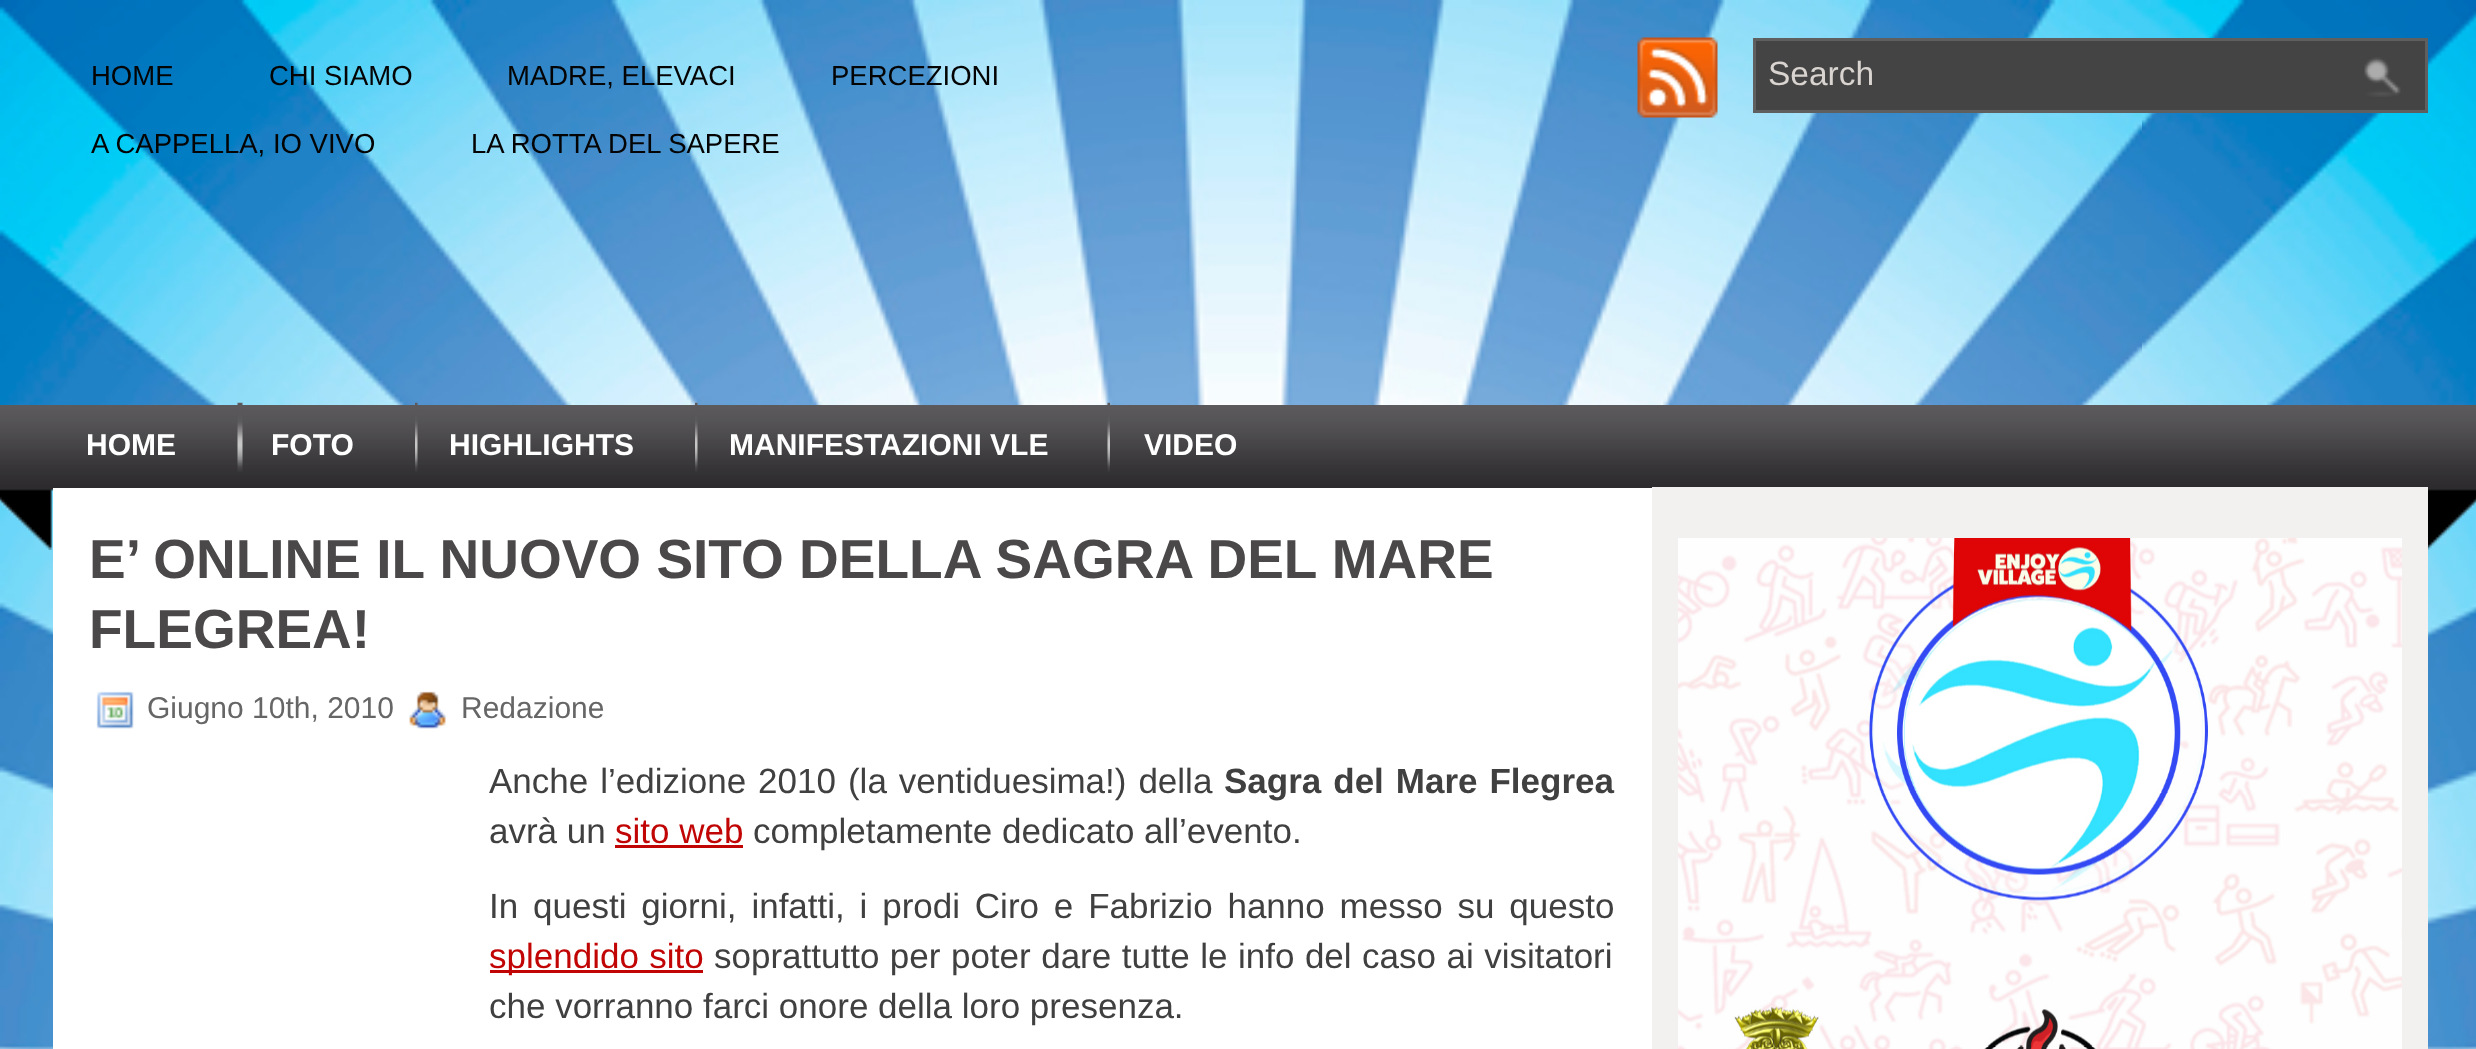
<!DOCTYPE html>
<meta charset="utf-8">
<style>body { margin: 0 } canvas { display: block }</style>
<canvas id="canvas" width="2476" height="1049"></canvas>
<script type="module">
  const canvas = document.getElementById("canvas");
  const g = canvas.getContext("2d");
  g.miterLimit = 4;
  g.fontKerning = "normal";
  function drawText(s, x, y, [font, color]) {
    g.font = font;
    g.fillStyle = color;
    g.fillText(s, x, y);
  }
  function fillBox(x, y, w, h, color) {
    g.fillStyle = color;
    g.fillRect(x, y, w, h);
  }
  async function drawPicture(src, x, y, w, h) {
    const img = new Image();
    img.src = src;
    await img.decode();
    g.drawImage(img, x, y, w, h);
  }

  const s1 = ["27.5px Liberation Sans", "#040404"];
  const s2 = ["33.5px Liberation Sans", "#D9D4D0"];
  const s3 = ["bold 30px Liberation Sans", "#FFFFFF"];
  const s4 = ["bold 55px Liberation Sans", "#4A4848"];
  const s5 = ["30px Liberation Sans", "#666666"];
  const s6 = ["35px Liberation Sans", "#404040"];
  const s7 = ["bold 35px Liberation Sans", "#404040"];
  const s8 = ["35px Liberation Sans", "#C10504"];

  fillBox(0, 0, 2476, 1049, "#FFFFFF");
  await drawPicture("pic1.png", 0, 0, 2476, 1049);
  await drawPicture("pic2.png", 0, 405, 2476, 145);
  drawText("HOME", 91, 85, s1);
  drawText("CHI SIAMO", 269, 85, s1);
  drawText("MADRE, ELEVACI", 507, 85, s1);
  drawText("PERCEZIONI", 831, 85, s1);
  drawText("A CAPPELLA, IO VIVO", 91, 153, s1);
  drawText("LA ROTTA DEL SAPERE", 471, 153, s1);
  await drawPicture("pic3.png", 1637, 37, 81, 81);
  g.fillStyle = "#444444";
  g.beginPath();
  g.rect(1754.5, 39.5, 672, 72);
  g.fill();
  g.strokeStyle = "#605F5F";
  g.lineWidth = 3;
  g.stroke();
  drawText("Search", 1768, 85, s2);
  await drawPicture("pic4.png", 2364, 57, 37, 40);
  drawText("HOME", 86, 455, s3);
  await drawPicture("pic5.png", 237, 402, 6, 70);
  drawText("FOTO", 271, 455, s3);
  await drawPicture("pic6.png", 415, 402, 3, 70);
  drawText("HIGHLIGHTS", 449, 455, s3);
  await drawPicture("pic7.png", 695, 402, 3, 70);
  drawText("MANIFESTAZIONI VLE", 729, 455, s3);
  await drawPicture("pic8.png", 1107, 402, 3, 70);
  drawText("VIDEO", 1144, 455, s3);
  fillBox(53, 488, 1599, 561, "#FFFFFF");
  fillBox(1652, 487, 776, 562, "#F3F1F0");
  drawText("E’ ONLINE IL NUOVO SITO DELLA SAGRA DEL MARE", 89, 578, s4);
  drawText("FLEGREA!", 89, 648, s4);
  await drawPicture("pic9.png", 96, 691, 38, 38);
  drawText("Giugno 10th, 2010", 147, 718, s5);
  await drawPicture("pic10.png", 409, 691, 37, 38);
  drawText("Redazione", 461, 718, s5);
  g.wordSpacing = "2.25px";
  drawText("Anche l’edizione 2010 (la ventiduesima!) della", 489, 793, s6);
  drawText("Sagra del Mare Flegrea", 1224, 793, s7);
  g.wordSpacing = "0px";
  drawText("avrà un", 489, 843, s6);
  drawText("sito web", 615, 843, s8);
  fillBox(615, 845, 128, 3, "#C10504");
  drawText("completamente dedicato all’evento.", 753, 843, s6);
  g.wordSpacing = "5.1px";
  drawText("In questi giorni, infatti, i prodi Ciro e Fabrizio hanno messo su questo", 489, 918, s6);
  fillBox(490, 970, 213, 3, "#C10504");
  g.wordSpacing = "0.75px";
  drawText("splendido sito", 489, 968, s8);
  drawText("soprattutto per poter dare tutte le info del caso ai visitatori", 714, 968, s6);
  g.wordSpacing = "0px";
  drawText("che vorranno farci onore della loro presenza.", 489, 1018, s6);
  await drawPicture("pic11.png", 1678, 538, 724, 511);
</script>
